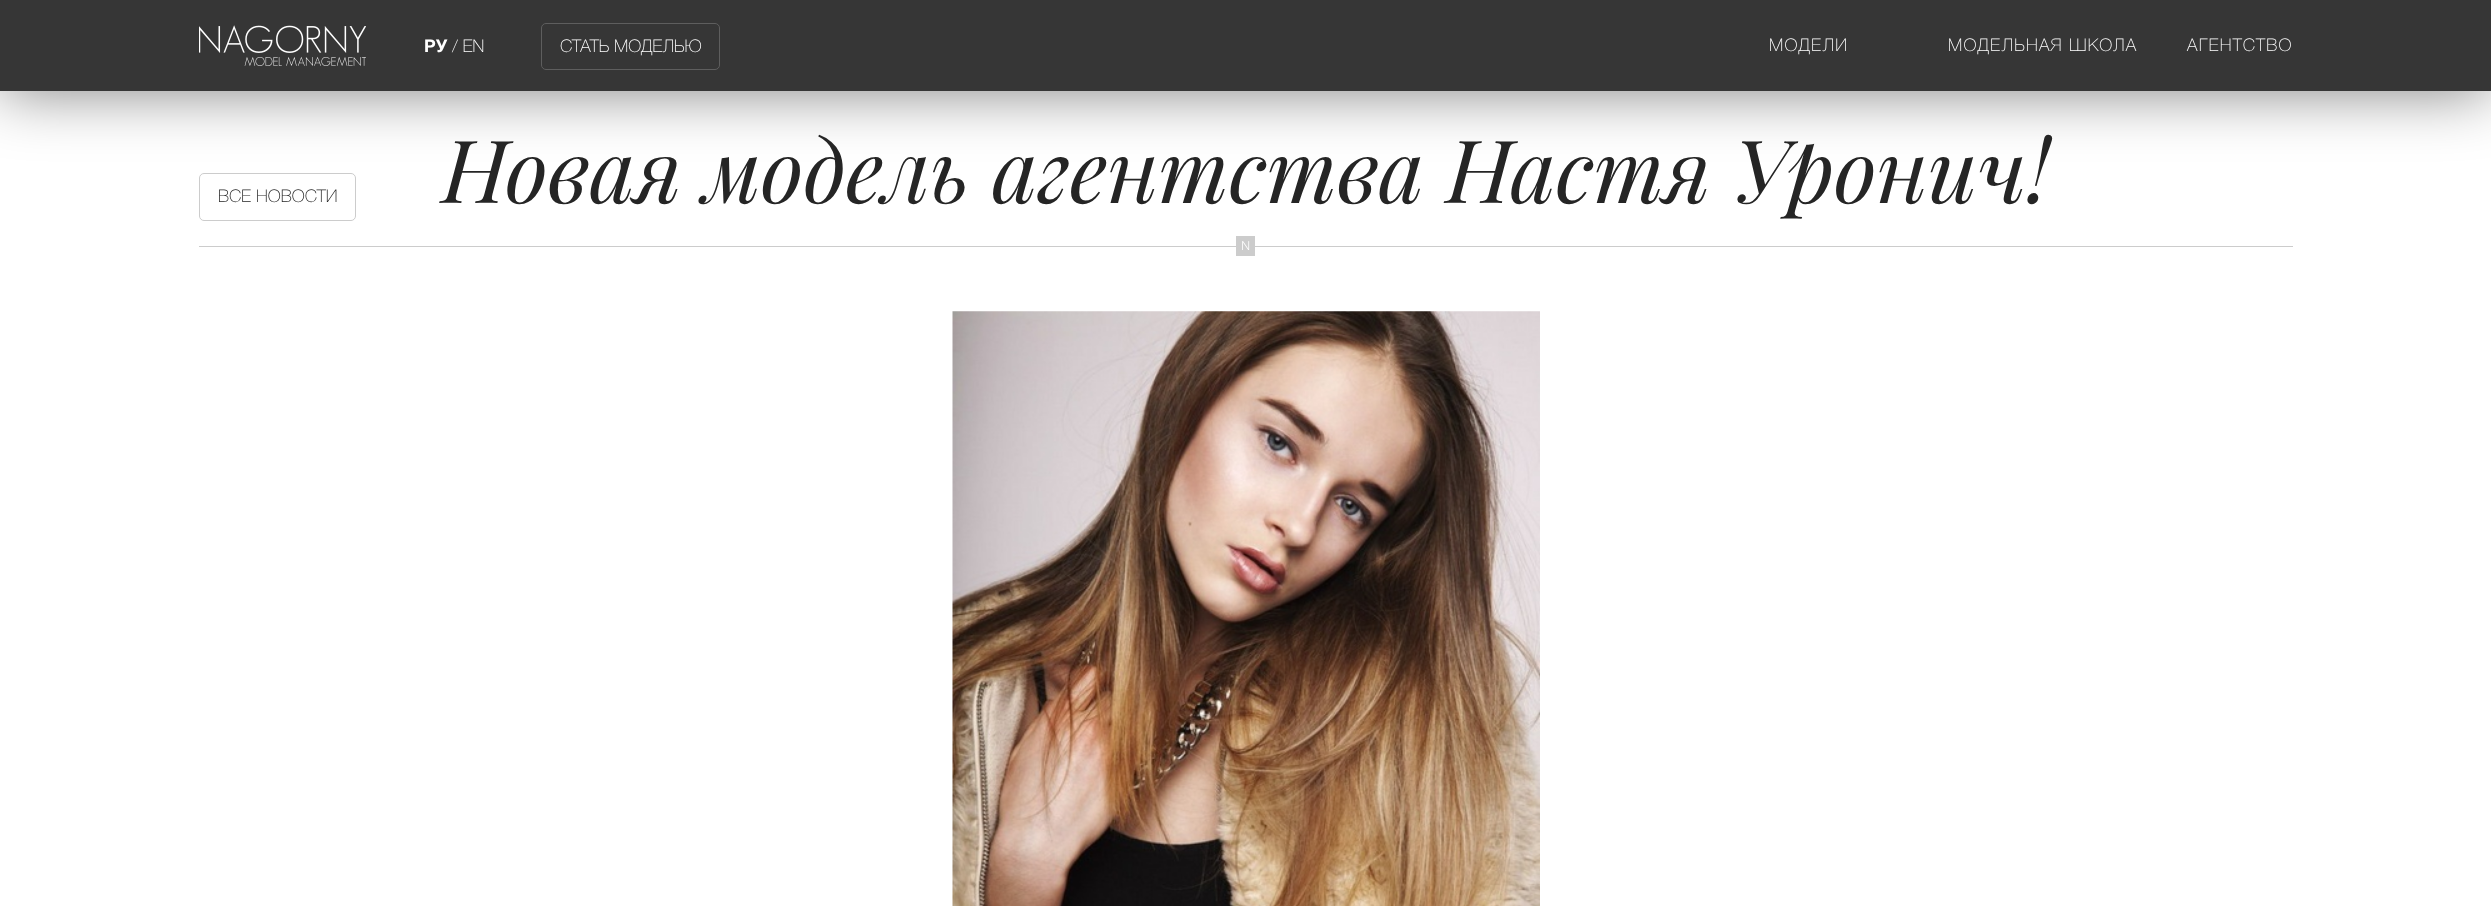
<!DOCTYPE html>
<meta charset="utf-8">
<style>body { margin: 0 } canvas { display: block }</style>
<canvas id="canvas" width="2491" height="906"></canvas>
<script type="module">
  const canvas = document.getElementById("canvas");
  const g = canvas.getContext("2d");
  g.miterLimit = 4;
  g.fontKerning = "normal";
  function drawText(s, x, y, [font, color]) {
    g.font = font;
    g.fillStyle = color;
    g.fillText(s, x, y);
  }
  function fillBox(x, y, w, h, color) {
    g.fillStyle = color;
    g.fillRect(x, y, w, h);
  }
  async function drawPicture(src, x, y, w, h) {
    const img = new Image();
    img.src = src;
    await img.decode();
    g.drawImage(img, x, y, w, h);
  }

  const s1 = ["bold 17.5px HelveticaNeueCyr", "#FFFFFF"];
  const s2 = ["100 17.5px HelveticaNeueCyr", "#FFFFFF"];
  const s3 = ["100 17.5px HelveticaNeueCyr", "#252525"];
  const s4 = ["italic 87.2px Playfair Display", "#252525"];

  fillBox(0, 0, 2491, 906, "#FFFFFF");
  g.beginPath();
  g.roundRect(199.5, 173.5, 156, 47, 4.5);
  g.strokeStyle = "#CCCCCC";
  g.stroke();
  g.fillStyle = "rgba(0, 0, 0, 0.5)";
  g.filter = "blur(31px)";
  g.beginPath();
  g.rect(0, 0, 2491, 91);
  g.fill();
  g.filter = "none";
  fillBox(0, 0, 2491, 91, "#363636");
  await drawPicture("pic1.png", 199, 25, 167, 41);
  drawText("РУ", 424, 52, s1);
  drawText("/ EN", 452, 52, s2);
  g.beginPath();
  g.roundRect(541.5, 23.5, 178, 46, 4.5);
  g.strokeStyle = "#5E5E5E";
  g.stroke();
  drawText("СТАТЬ МОДЕЛЬЮ", 560, 52, s2);
  g.letterSpacing = "1.25px";
  drawText("МОДЕЛИ", 1769, 51, s2);
  drawText("МОДЕЛЬНАЯ ШКОЛА", 1948, 51, s2);
  drawText("АГЕНТСТВО", 2187, 51, s2);
  g.letterSpacing = "0px";
  drawText("ВСЕ НОВОСТИ", 218, 202, s3);
  drawText("Новая модель агентства Настя Уронич!", 442, 203, s4);
  fillBox(199, 246, 2094, 1, "#CCCCCC");
  fillBox(1236, 236, 19, 20, "#CCCCCC");
  await drawPicture("pic2.png", 1242, 241, 8, 9);
  await drawPicture("pic3.png", 952, 311, 588, 595);
</script>
